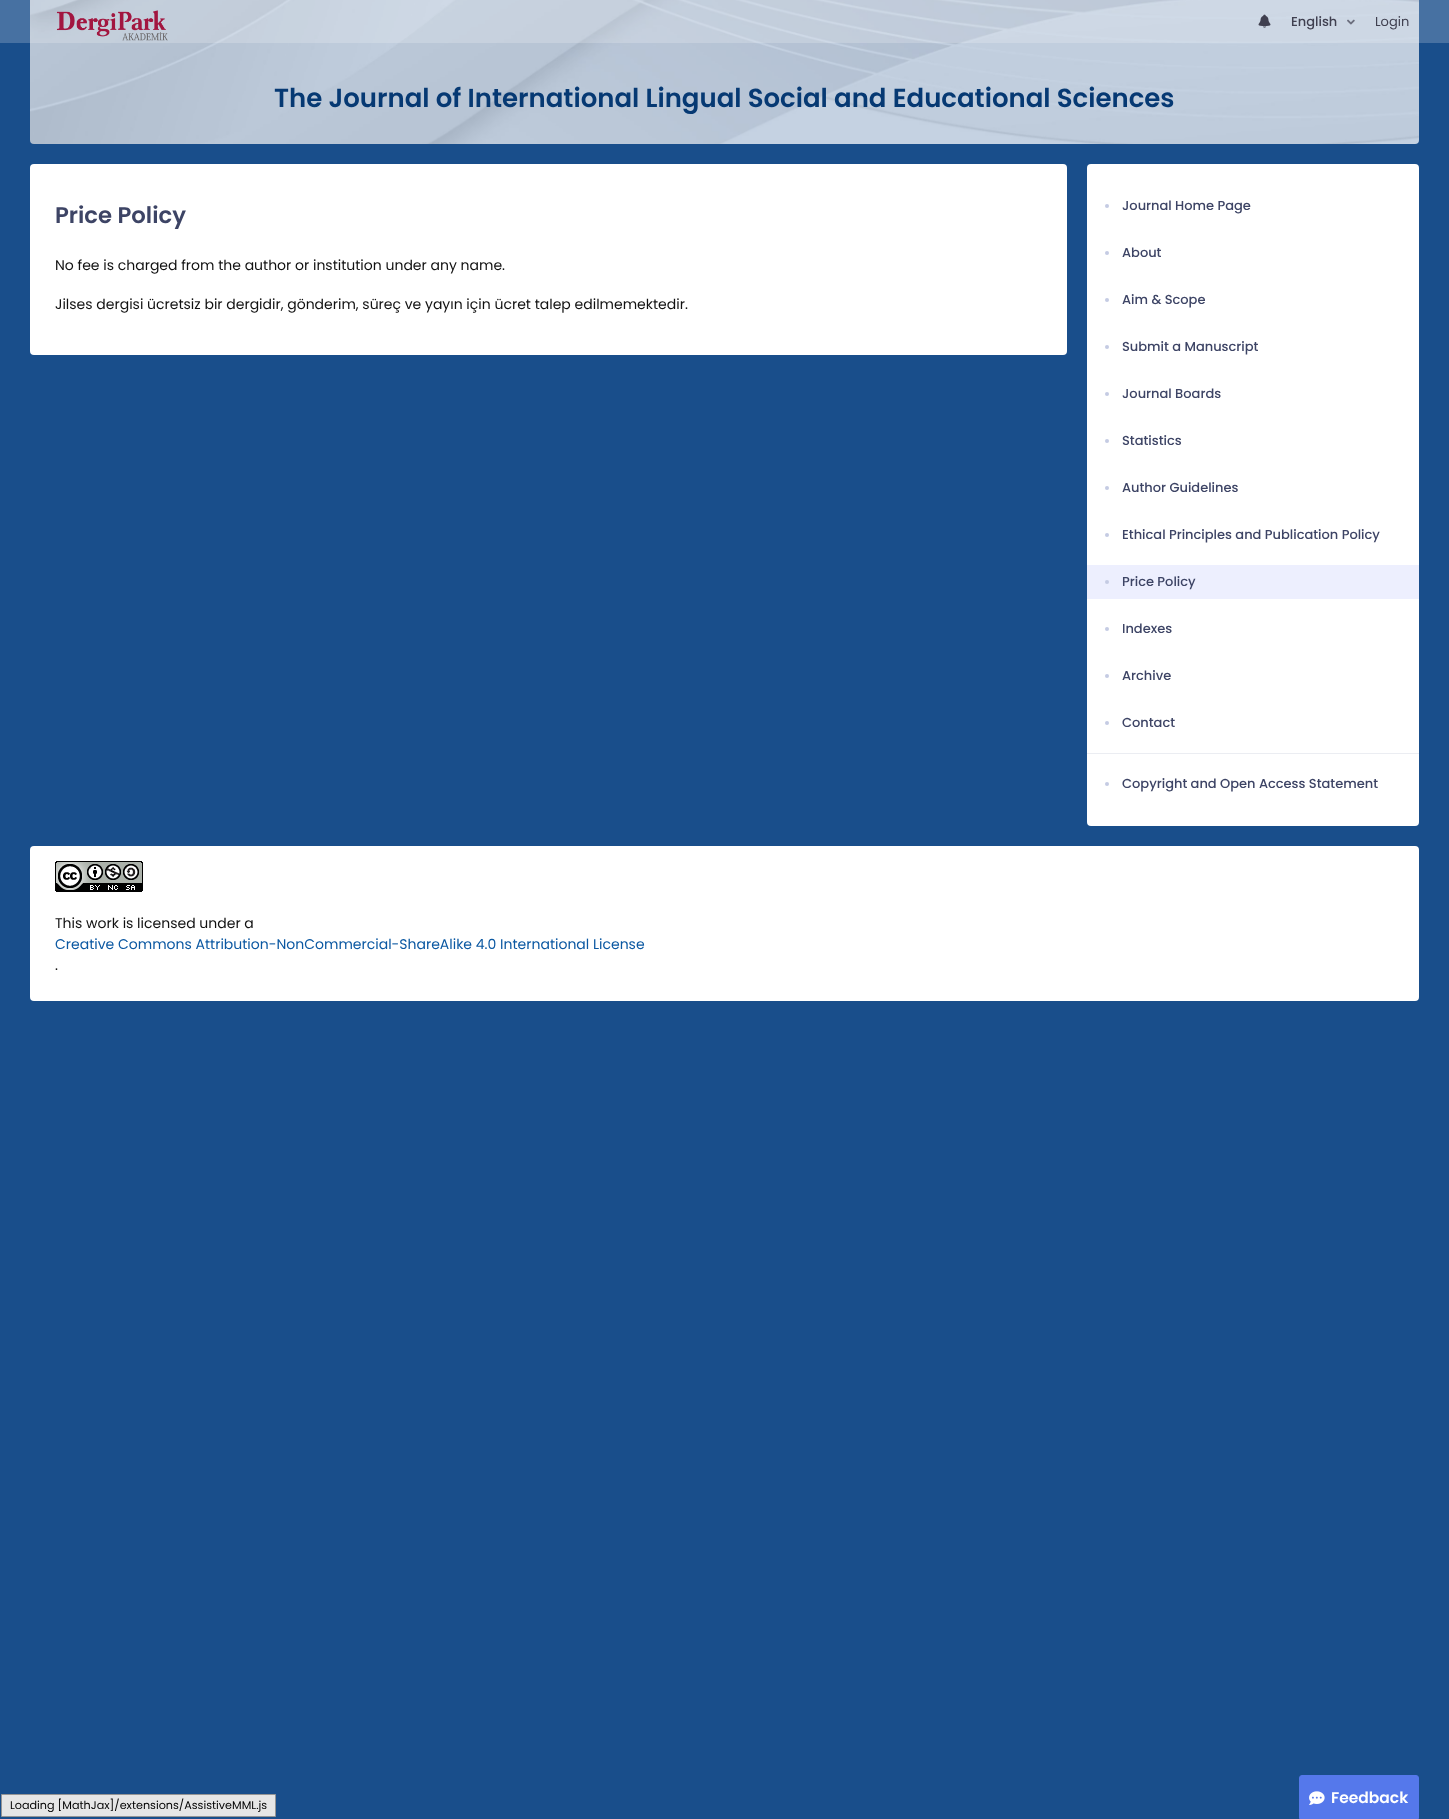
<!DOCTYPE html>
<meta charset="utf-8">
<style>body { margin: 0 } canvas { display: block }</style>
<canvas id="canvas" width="1449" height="1819"></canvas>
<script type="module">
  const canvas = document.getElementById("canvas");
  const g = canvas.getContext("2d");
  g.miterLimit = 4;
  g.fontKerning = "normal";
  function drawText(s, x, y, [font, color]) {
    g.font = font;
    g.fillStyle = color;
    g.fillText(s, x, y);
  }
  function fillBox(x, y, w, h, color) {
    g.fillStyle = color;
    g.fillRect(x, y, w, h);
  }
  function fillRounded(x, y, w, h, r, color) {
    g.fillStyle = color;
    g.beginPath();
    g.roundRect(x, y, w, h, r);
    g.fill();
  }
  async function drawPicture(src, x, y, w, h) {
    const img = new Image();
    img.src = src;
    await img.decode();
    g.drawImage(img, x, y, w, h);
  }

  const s1 = ["500 13px Poppins", "#404050"];
  const s2 = ["13px Poppins", "#404050"];
  const s3 = ["600 26px Poppins", "#063973"];
  const s4 = ["600 22.75px Poppins", "#3D4465"];
  const s5 = ["14px Poppins", "#111111"];
  const s6 = ["500 13px Poppins", "#3D4465"];
  const s7 = ["600 15.5px Poppins", "#FFFFFF"];
  const s8 = ["14px Poppins", "#0B58A2"];
  const s9 = ["11.2px Poppins", "#000000"];

  fillBox(0, 0, 1449, 1819, "#194E8B");
  await drawPicture("pic4.png", 30, 0, 1389, 144);
  fillBox(0, 0, 1449, 43, "rgba(255, 255, 255, 0.2)");
  await drawPicture("pic1.png", 56, 10, 112, 31);
  await drawPicture("pic2.png", 1258, 14, 13, 14);
  drawText("English", 1291, 26, s1);
  await drawPicture("pic3.png", 1347, 19, 8, 6);
  drawText("Login", 1375, 26, s2);
  drawText("The Journal of International Lingual Social and Educational Sciences", 274, 107, s3);
  fillRounded(30, 164, 1037, 191, 4, "#FFFFFF");
  drawText("Price Policy", 55, 223, s4);
  drawText("No fee is charged from the author or institution under any name.", 55, 270, s5);
  drawText("Jilses dergisi ücretsiz bir dergidir, gönderim, süreç ve yayın için ücret talep edilmemektedir.", 55, 309, s5);
  fillRounded(1087, 164, 332, 662, 4, "#FFFFFF");
  g.fillStyle = "#C5CBE3";
  g.beginPath();
  g.arc(1107, 206, 2, 0, Math.PI * 2);
  g.fill();
  drawText("Journal Home Page", 1122, 210, s6);
  g.fillStyle = "#C5CBE3";
  g.beginPath();
  g.arc(1107, 253, 2, 0, Math.PI * 2);
  g.fill();
  drawText("About", 1122, 257, s6);
  g.fillStyle = "#C5CBE3";
  g.beginPath();
  g.arc(1107, 300, 2, 0, Math.PI * 2);
  g.fill();
  drawText("Aim & Scope", 1122, 304, s6);
  g.fillStyle = "#C5CBE3";
  g.beginPath();
  g.arc(1107, 347, 2, 0, Math.PI * 2);
  g.fill();
  drawText("Submit a Manuscript", 1122, 351, s6);
  g.fillStyle = "#C5CBE3";
  g.beginPath();
  g.arc(1107, 394, 2, 0, Math.PI * 2);
  g.fill();
  drawText("Journal Boards", 1122, 398, s6);
  g.fillStyle = "#C5CBE3";
  g.beginPath();
  g.arc(1107, 441, 2, 0, Math.PI * 2);
  g.fill();
  drawText("Statistics", 1122, 445, s6);
  g.fillStyle = "#C5CBE3";
  g.beginPath();
  g.arc(1107, 488, 2, 0, Math.PI * 2);
  g.fill();
  drawText("Author Guidelines", 1122, 492, s6);
  g.fillStyle = "#C5CBE3";
  g.beginPath();
  g.arc(1107, 535, 2, 0, Math.PI * 2);
  g.fill();
  drawText("Ethical Principles and Publication Policy", 1122, 539, s6);
  fillBox(1087, 565, 332, 34, "#EDEFFE");
  g.fillStyle = "#C5CBE3";
  g.beginPath();
  g.arc(1107, 582, 2, 0, Math.PI * 2);
  g.fill();
  drawText("Price Policy", 1122, 586, s6);
  g.fillStyle = "#C5CBE3";
  g.beginPath();
  g.arc(1107, 629, 2, 0, Math.PI * 2);
  g.fill();
  drawText("Indexes", 1122, 633, s6);
  g.fillStyle = "#C5CBE3";
  g.beginPath();
  g.arc(1107, 676, 2, 0, Math.PI * 2);
  g.fill();
  drawText("Archive", 1122, 680, s6);
  g.fillStyle = "#C5CBE3";
  g.beginPath();
  g.arc(1107, 723, 2, 0, Math.PI * 2);
  g.fill();
  drawText("Contact", 1122, 727, s6);
  fillBox(1087, 753, 332, 1, "#EBEDF2");
  g.fillStyle = "#C5CBE3";
  g.beginPath();
  g.arc(1107, 784, 2, 0, Math.PI * 2);
  g.fill();
  drawText("Copyright and Open Access Statement", 1122, 788, s6);
  g.fillStyle = "#5578EB";
  g.beginPath();
  g.roundRect(1299.5, 1775.5, 119, 43, [2.5, 2.5, 0, 0]);
  g.fill();
  g.strokeStyle = "#5578EB";
  g.stroke();
  await drawPicture("pic5.png", 1309, 1791, 16, 14);
  drawText("Feedback", 1331, 1803, s7);
  fillRounded(30, 846, 1389, 155, 4, "#FFFFFF");
  await drawPicture("pic6.png", 55, 861, 88, 31);
  drawText("This work is licensed under a", 55, 928, s5);
  drawText("Creative Commons Attribution-NonCommercial-ShareAlike 4.0 International License", 55, 949, s8);
  drawText(".", 55, 970, s5);
  g.fillStyle = "#E6E6E6";
  g.beginPath();
  g.rect(1.5, 1794.5, 274, 22);
  g.fill();
  g.strokeStyle = "#959595";
  g.stroke();
  drawText("Loading [MathJax]/extensions/AssistiveMML.js", 10, 1809, s9);
</script>
